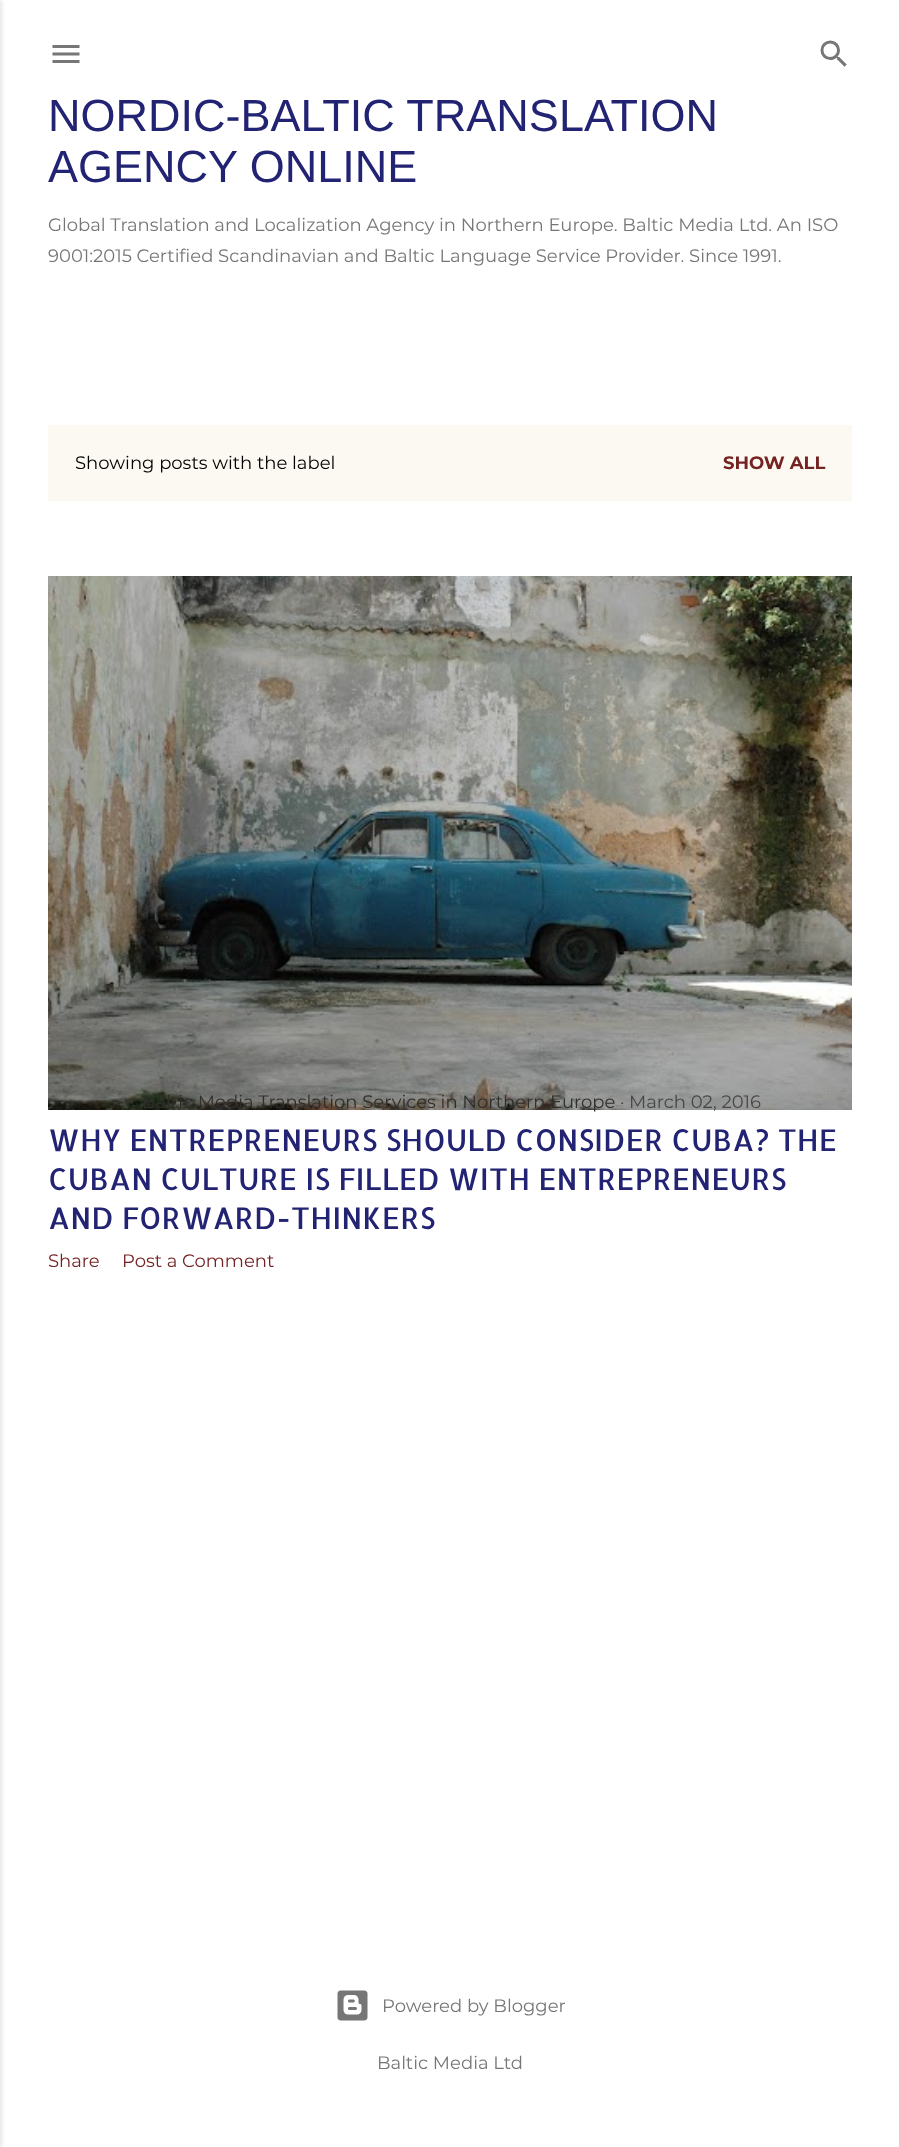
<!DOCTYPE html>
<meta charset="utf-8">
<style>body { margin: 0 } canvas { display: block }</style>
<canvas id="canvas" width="899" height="2147"></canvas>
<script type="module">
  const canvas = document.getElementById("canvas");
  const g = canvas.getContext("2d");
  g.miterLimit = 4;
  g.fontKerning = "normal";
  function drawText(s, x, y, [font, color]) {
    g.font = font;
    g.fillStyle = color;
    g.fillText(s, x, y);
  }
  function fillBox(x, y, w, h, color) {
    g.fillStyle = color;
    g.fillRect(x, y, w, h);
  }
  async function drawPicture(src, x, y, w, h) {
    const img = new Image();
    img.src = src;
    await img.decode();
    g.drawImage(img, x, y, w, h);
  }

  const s1 = ["45px Liberation Sans", "#232374"];
  const s2 = ["100 18px Montserrat", "#767676"];
  const s3 = ["100 18px Montserrat", "#000000"];
  const s4 = ["100 18px 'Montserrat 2'", "#742323"];
  const s5 = ["100 18px Montserrat", "#2F2E2B"];
  const s6 = ["100 18px Montserrat", "#474746"];
  const s7 = ["30px Allerta", "#232374"];
  const s8 = ["100 18px Montserrat", "#742323"];

  fillBox(0, 0, 899, 2147, "#FFFFFF");
  g.fillStyle = "rgba(0, 0, 0, 0.1)";
  g.filter = "blur(2px)";
  g.beginPath();
  g.rect(-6, 0, 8, 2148);
  g.fill();
  g.filter = "none";
  await drawPicture("pic1.png", 52, 45, 28, 18);
  await drawPicture("pic2.png", 820, 40, 27, 27);
  drawText("NORDIC-BALTIC TRANSLATION", 48, 131, s1);
  drawText("AGENCY ONLINE", 48, 182, s1);
  drawText("Global Translation and Localization Agency in Northern Europe. Baltic Media Ltd. An ISO", 48, 231, s2);
  drawText("9001:2015 Certified Scandinavian and Baltic Language Service Provider. Since 1991.", 48, 262, s2);
  fillBox(48, 425, 804, 76, "#FCF9F2");
  drawText("Showing posts with the label", 75, 469, s3);
  drawText("SHOW ALL", 723, 469, s4);
  await drawPicture("pic3.png", 48, 576, 804, 534);
  drawText("Baltic Media Translation Services in Northern Europe", 142, 1108, s5);
  drawText("·", 620, 1108, s6);
  drawText("March 02, 2016", 629, 1108, s6);
  drawText("WHY ENTREPRENEURS SHOULD CONSIDER CUBA? THE", 48, 1151, s7);
  drawText("CUBAN CULTURE IS FILLED WITH ENTREPRENEURS", 48, 1190, s7);
  drawText("AND FORWARD-THINKERS", 48, 1229, s7);
  drawText("Share", 48, 1267, s8);
  drawText("Post a Comment", 122, 1267, s8);
  await drawPicture("pic4.png", 337, 1990, 31, 31);
  drawText("Powered by Blogger", 382, 2012, s2);
  drawText("Baltic Media Ltd", 377, 2069, s2);
</script>
